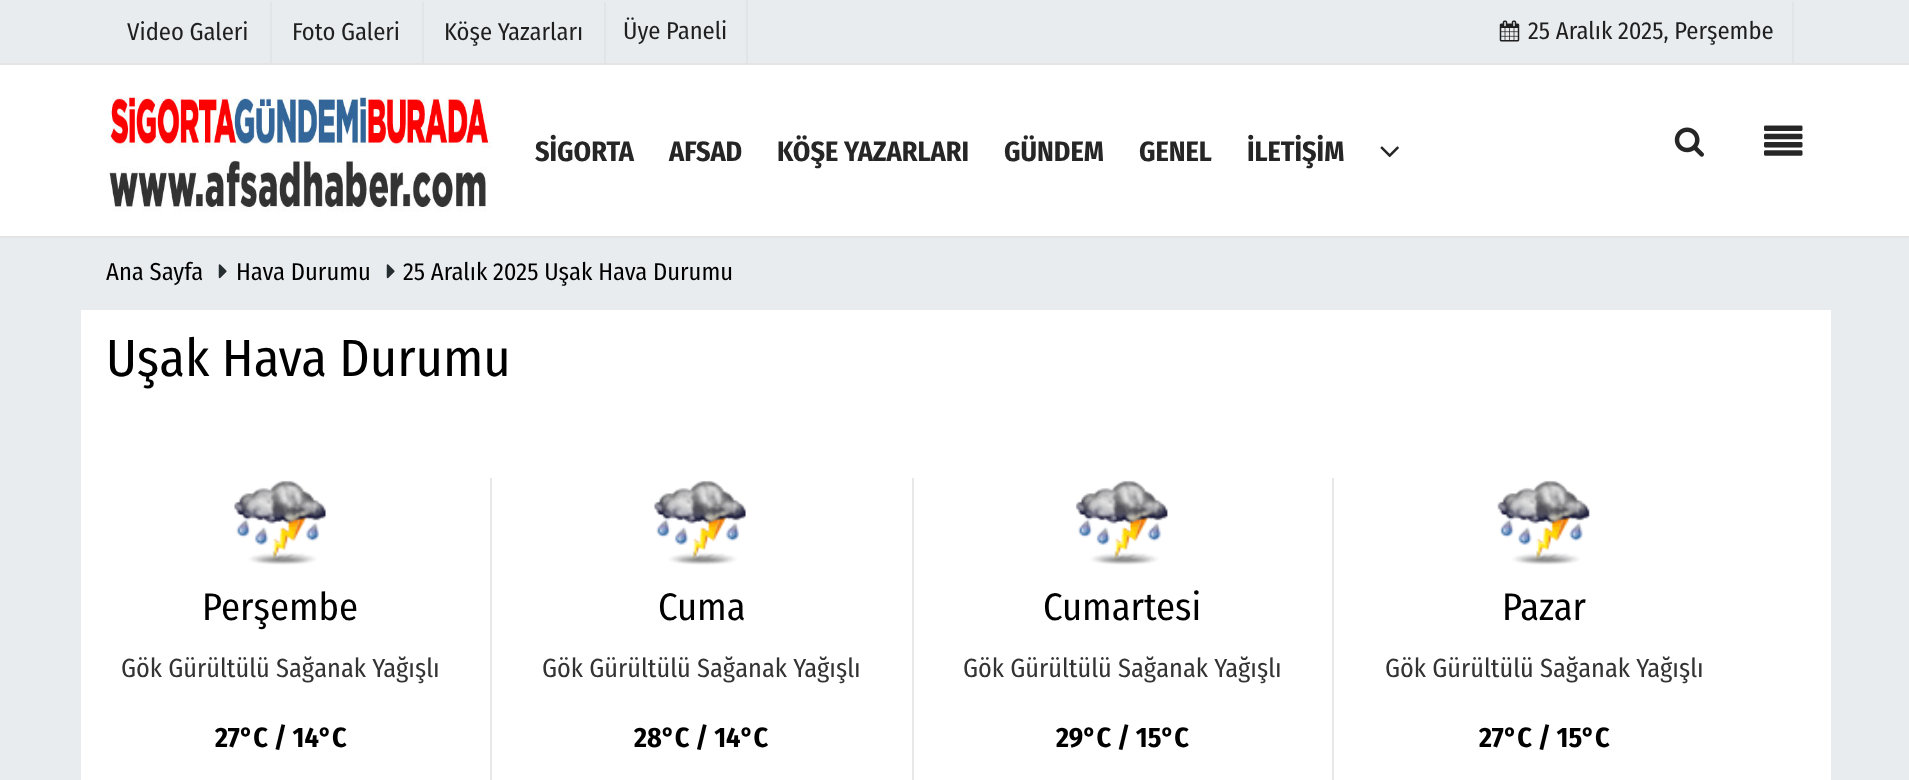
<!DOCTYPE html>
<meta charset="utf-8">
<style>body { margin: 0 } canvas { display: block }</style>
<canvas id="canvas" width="1909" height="780"></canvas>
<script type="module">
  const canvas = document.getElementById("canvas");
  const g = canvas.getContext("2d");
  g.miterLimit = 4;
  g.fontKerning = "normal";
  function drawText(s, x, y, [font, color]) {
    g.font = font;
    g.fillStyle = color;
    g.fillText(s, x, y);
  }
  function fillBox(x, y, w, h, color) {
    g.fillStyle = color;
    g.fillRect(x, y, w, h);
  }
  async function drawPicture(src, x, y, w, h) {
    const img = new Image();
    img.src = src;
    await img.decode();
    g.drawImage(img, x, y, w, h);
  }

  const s1 = ["24.5px Fira Sans Condensed", "#1F1F1F"];
  const s2 = ["bold 28px Fira Sans Condensed", "#262626"];
  const s3 = ["24.5px Fira Sans Condensed", "#000000"];
  const s4 = ["52.5px Fira Sans Condensed", "#000000"];
  const s5 = ["38.5px Fira Sans Condensed", "#000000"];
  const s6 = ["26.25px Fira Sans Condensed", "#333333"];
  const s7 = ["bold 28px Fira Sans Condensed", "#000000"];

  fillBox(0, 0, 1909, 780, "#E9ECEF");
  fillBox(604, 2, 2, 61, "#E2E5E8");
  fillBox(422, 2, 2, 61, "#E2E5E8");
  fillBox(270, 2, 2, 61, "#E2E5E8");
  drawText("Video Galeri", 127, 40, s1);
  drawText("Foto Galeri", 292, 40, s1);
  drawText("Köşe Yazarları", 444, 40, s1);
  fillBox(746, 0, 2, 63, "#E2E5E8");
  drawText("Üye Paneli", 623, 39, s1);
  fillBox(1792, 2, 2, 61, "#E2E5E8");
  await drawPicture("pic1.png", 1499, 20, 21, 22);
  drawText("25 Aralık 2025, Perşembe", 1528, 39, s1);
  fillBox(0, 65, 1909, 171, "#FFFFFF");
  fillBox(0, 63, 1909, 2, "#E4E4E4");
  fillBox(0, 236, 1909, 2, "#E4E4E4");
  await drawPicture("pic2.png", 107, 97, 385, 115);
  drawText("SİGORTA", 535, 161, s2);
  drawText("AFSAD", 669, 161, s2);
  drawText("KÖŞE YAZARLARI", 777, 161, s2);
  drawText("GÜNDEM", 1004, 161, s2);
  drawText("GENEL", 1139, 161, s2);
  drawText("İLETİŞİM", 1247, 161, s2);
  await drawPicture("pic3.png", 1380, 146, 19, 12);
  await drawPicture("pic4.png", 1674, 127, 30, 30);
  await drawPicture("pic5.png", 1764, 125, 39, 31);
  drawText("Ana Sayfa", 106, 280, s3);
  await drawPicture("pic6.png", 218, 264, 9, 15);
  drawText("Hava Durumu", 236, 280, s3);
  await drawPicture("pic6.png", 386, 264, 9, 15);
  drawText("25 Aralık 2025 Uşak Hava Durumu", 403, 280, s3);
  fillBox(81, 310, 1750, 470, "#FFFFFF");
  drawText("Uşak Hava Durumu", 106, 376, s4);
  fillBox(490, 478, 2, 302, "#E8E8E8");
  await drawPicture("pic7.png", 234, 480, 92, 85);
  drawText("Perşembe", 202, 620, s5);
  drawText("Gök Gürültülü Sağanak Yağışlı", 121, 677, s6);
  drawText("27°C / 14°C", 215, 747, s7);
  fillBox(912, 478, 2, 302, "#E8E8E8");
  await drawPicture("pic7.png", 654, 480, 92, 85);
  drawText("Cuma", 658, 620, s5);
  drawText("Gök Gürültülü Sağanak Yağışlı", 542, 677, s6);
  drawText("28°C / 14°C", 634, 747, s7);
  fillBox(1332, 478, 2, 302, "#E8E8E8");
  await drawPicture("pic8.png", 1075, 480, 93, 85);
  drawText("Cumartesi", 1043, 620, s5);
  drawText("Gök Gürültülü Sağanak Yağışlı", 963, 677, s6);
  drawText("29°C / 15°C", 1056, 747, s7);
  await drawPicture("pic9.png", 1497, 480, 93, 85);
  drawText("Pazar", 1502, 620, s5);
  drawText("Gök Gürültülü Sağanak Yağışlı", 1385, 677, s6);
  drawText("27°C / 15°C", 1479, 747, s7);
</script>
